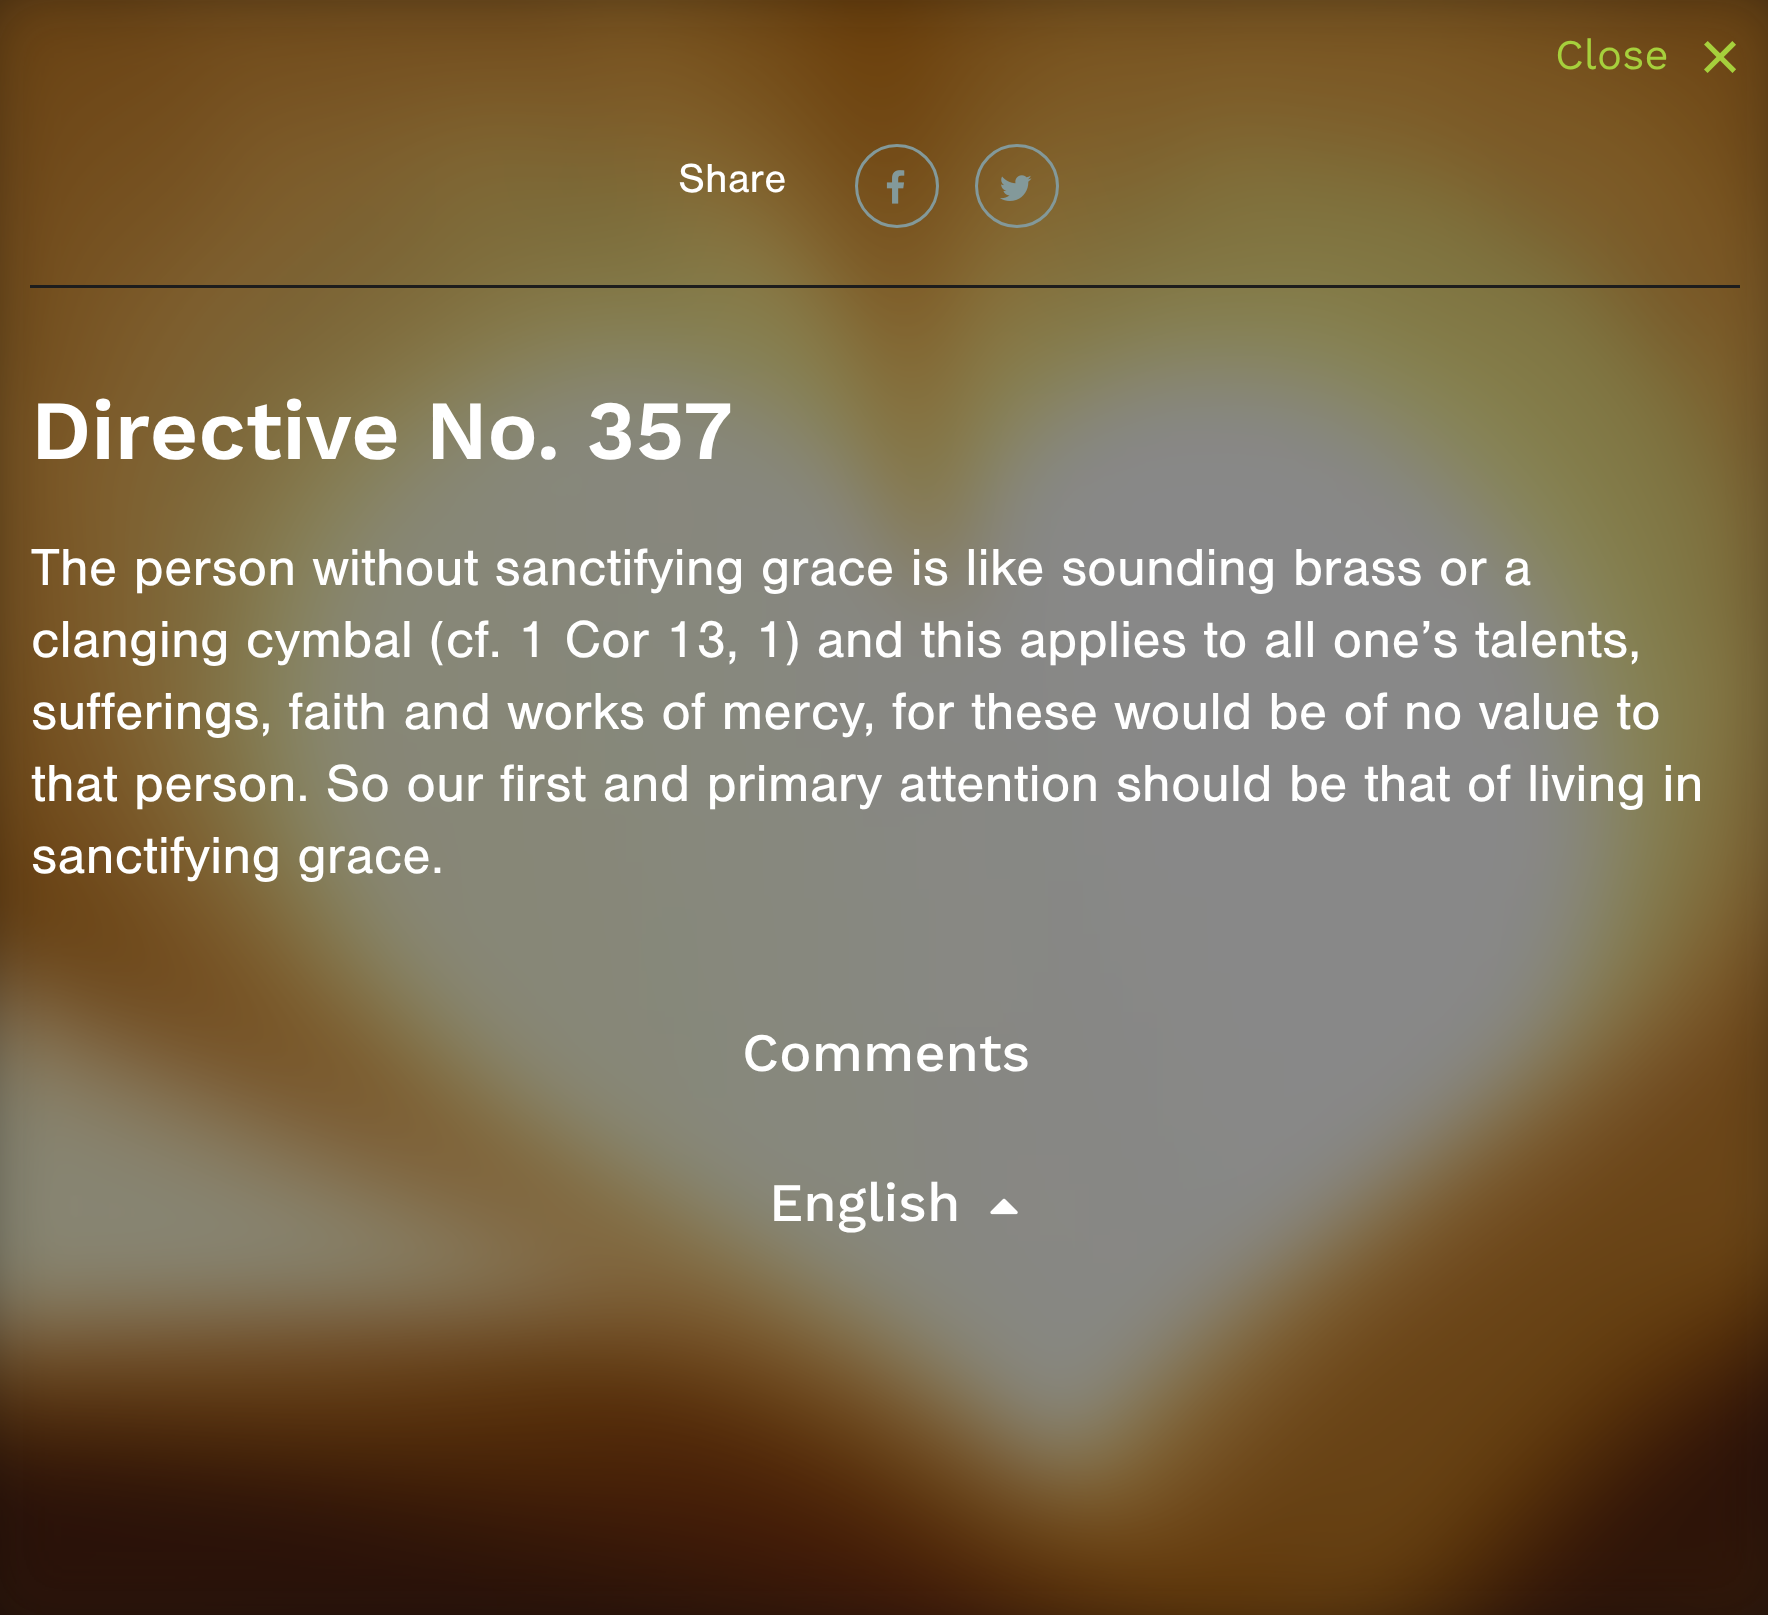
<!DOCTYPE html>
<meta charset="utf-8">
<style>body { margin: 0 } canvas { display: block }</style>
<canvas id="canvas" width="1768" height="1615"></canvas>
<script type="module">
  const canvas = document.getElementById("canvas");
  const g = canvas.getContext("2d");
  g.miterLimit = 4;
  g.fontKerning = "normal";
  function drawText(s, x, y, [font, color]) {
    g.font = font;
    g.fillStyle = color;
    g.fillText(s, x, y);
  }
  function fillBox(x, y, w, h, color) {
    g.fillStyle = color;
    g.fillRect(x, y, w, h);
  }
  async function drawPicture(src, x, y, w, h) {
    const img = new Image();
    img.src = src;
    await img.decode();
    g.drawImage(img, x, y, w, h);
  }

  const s1 = ["42px Work Sans", "#A6D03C"];
  const s2 = ["72px Liberation Sans", "#A6D03C"];
  const s3 = ["42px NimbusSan", "#FFFFFF"];
  const s4 = ["600 84px Work Sans", "#FFFFFF"];
  const s5 = ["54px NimbusSan", "#FFFFFF"];
  const s6 = ["500 54px Work Sans", "#FFFFFF"];

  fillBox(0, 0, 1768, 1615, "#111111");
  await drawPicture("pic1.png", 0, 0, 1768, 1615);
  fillBox(30, 285, 1710, 3, "#1D1D1D");
  drawText("Close", 1555, 69, s1);
  drawText("×", 1699, 81, s2);
  drawText("Share", 678, 192, s3);
  g.beginPath();
  g.arc(897, 186, 40.5, 0, Math.PI * 2);
  g.strokeStyle = "#83999A";
  g.lineWidth = 3;
  g.stroke();
  await drawPicture("pic2.png", 886, 170, 19, 34);
  g.beginPath();
  g.arc(1017, 186, 40.5, 0, Math.PI * 2);
  g.stroke();
  await drawPicture("pic3.png", 1000, 175, 32, 26);
  drawText("Directive No. 357", 31, 459, s4);
  drawText("The person without sanctifying grace is like sounding brass or a", 31, 585, s5);
  drawText("clanging cymbal (cf. 1 Cor 13, 1) and this applies to all one’s talents,", 31, 657, s5);
  drawText("sufferings, faith and works of mercy, for these would be of no value to", 31, 729, s5);
  drawText("that person. So our first and primary attention should be that of living in", 31, 801, s5);
  drawText("sanctifying grace.", 31, 873, s5);
  drawText("Comments", 742, 1071, s6);
  drawText("English", 769, 1221, s6);
  await drawPicture("pic4.png", 990, 1198, 28, 17);
</script>
